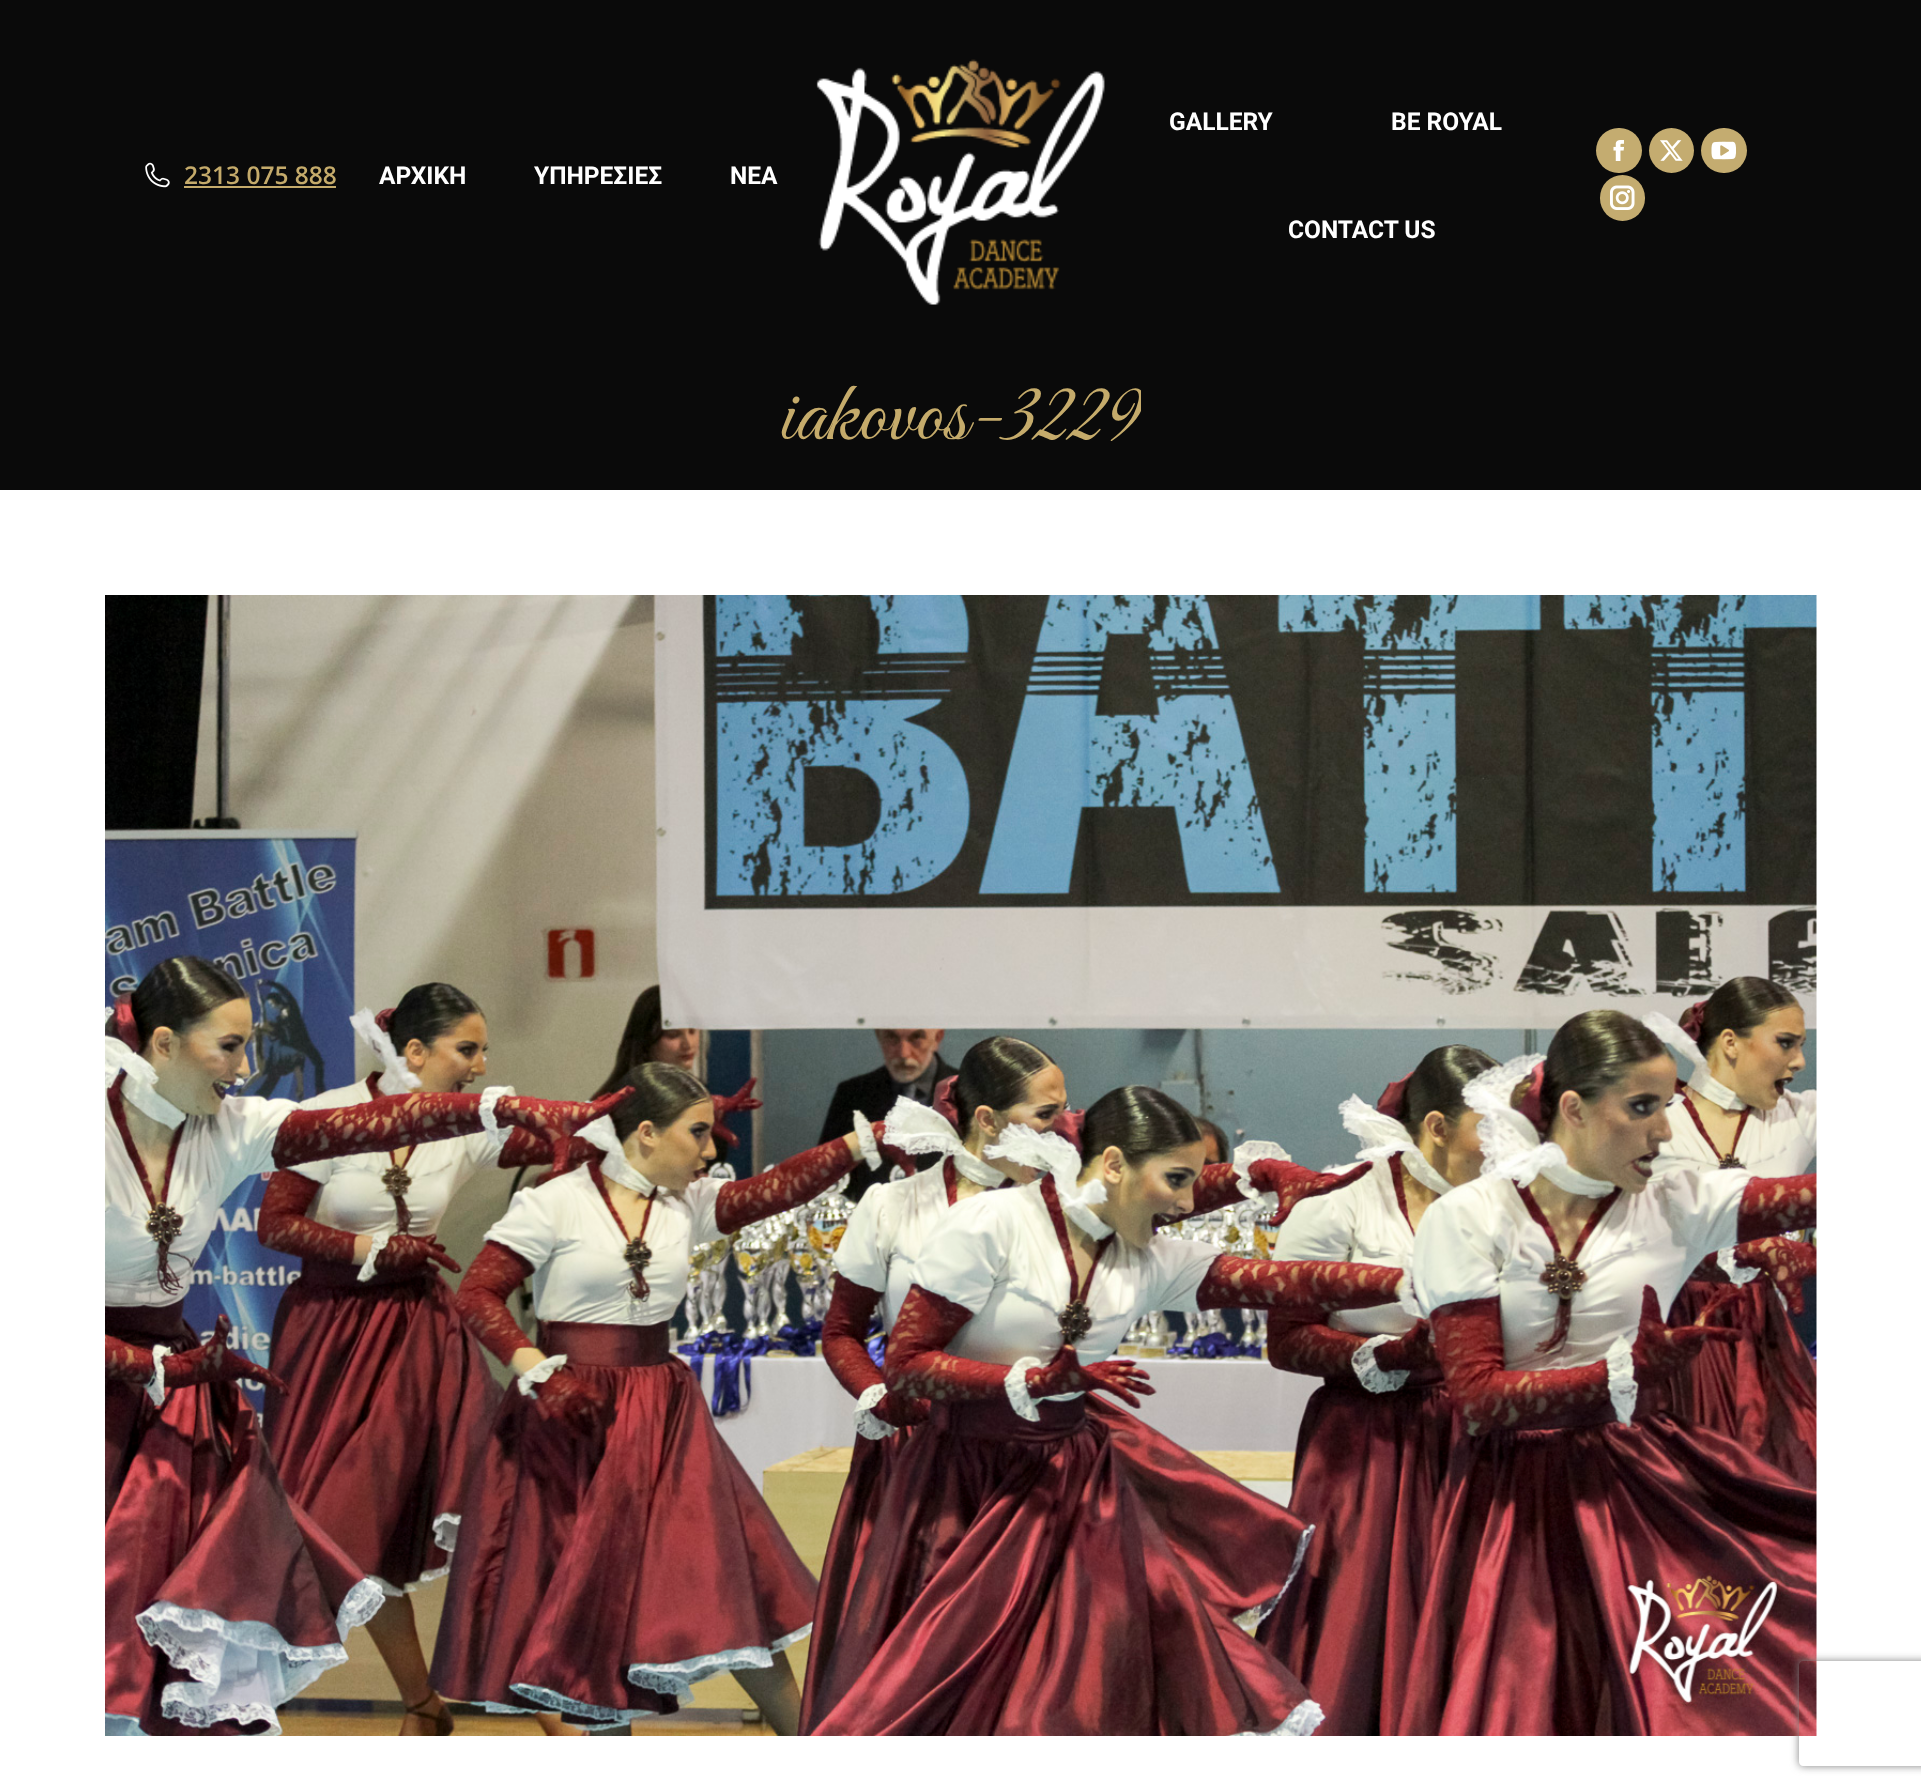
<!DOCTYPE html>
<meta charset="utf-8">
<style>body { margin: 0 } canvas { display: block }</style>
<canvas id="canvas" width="1921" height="1790"></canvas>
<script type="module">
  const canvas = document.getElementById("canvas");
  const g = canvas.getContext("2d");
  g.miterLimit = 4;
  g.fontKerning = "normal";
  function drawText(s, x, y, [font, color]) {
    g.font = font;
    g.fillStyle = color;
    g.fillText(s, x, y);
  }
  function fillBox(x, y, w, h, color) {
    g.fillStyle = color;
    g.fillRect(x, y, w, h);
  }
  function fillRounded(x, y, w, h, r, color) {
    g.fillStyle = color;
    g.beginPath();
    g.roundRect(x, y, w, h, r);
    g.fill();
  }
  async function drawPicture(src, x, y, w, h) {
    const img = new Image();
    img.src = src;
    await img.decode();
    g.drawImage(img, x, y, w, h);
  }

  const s1 = ["600 24.5px Open Sans", "#C5AB6B"];
  const s2 = ["bold 24.5px Roboto", "#FFFFFF"];
  const s3 = ["87.5px Great Vibes", "#C5AB6B"];

  fillBox(0, 0, 1921, 1790, "#FFFFFF");
  fillBox(0, 0, 1921, 490, "#0A0A0A");
  await drawPicture("pic1.png", 145, 162, 25, 26);
  drawText("2313 075 888", 184, 184, s1);
  fillBox(184, 186, 152, 2, "#C5AB6B");
  drawText("ΑΡΧΙΚΗ", 379, 184, s2);
  drawText("ΥΠΗΡΕΣΙΕΣ", 534, 184, s2);
  drawText("ΝΕΑ", 730, 184, s2);
  await drawPicture("pic2.png", 816, 59, 289, 246);
  drawText("GALLERY", 1169, 130, s2);
  drawText("BE ROYAL", 1391, 130, s2);
  drawText("CONTACT US", 1288, 238, s2);
  fillRounded(1596, 128, 46, 45, 22.5, "#C4AC70");
  await drawPicture("pic3.png", 1613, 140, 11, 21);
  g.beginPath();
  g.arc(1671.5, 150.5, 22.5, 0, Math.PI * 2);
  g.fill();
  await drawPicture("pic4.png", 1660, 140, 23, 21);
  fillRounded(1701, 128, 46, 45, 22.5, "#C4AC70");
  await drawPicture("pic5.png", 1711, 141, 25, 19);
  fillRounded(1600, 175, 45, 46, 22.5, "#C4AC70");
  await drawPicture("pic6.png", 1610, 185, 25, 25);
  g.save();
  g.beginPath();
  g.rect(781, 359, 360, 122);
  g.clip();
  drawText("iakovos-3229", 780, 439, s3);
  g.restore();
  await drawPicture("pic7.png", 105, 595, 1712, 1141);
  g.save();
  g.beginPath();
  g.moveTo(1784, 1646);
  g.lineTo(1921, 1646);
  g.lineTo(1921, 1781);
  g.lineTo(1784, 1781);
  g.closePath();
  g.moveTo(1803, 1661);
  g.lineTo(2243, 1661);
  g.bezierCurveTo(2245, 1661, 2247, 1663, 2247, 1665);
  g.lineTo(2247, 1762);
  g.bezierCurveTo(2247, 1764, 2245, 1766, 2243, 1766);
  g.lineTo(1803, 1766);
  g.bezierCurveTo(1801, 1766, 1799, 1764, 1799, 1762);
  g.lineTo(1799, 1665);
  g.bezierCurveTo(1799, 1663, 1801, 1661, 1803, 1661);
  g.closePath();
  g.clip("evenodd");
  g.fillStyle = "#808080";
  g.filter = "blur(4.5px)";
  g.beginPath();
  g.roundRect(1799, 1661, 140, 105, 4);
  g.fill();
  g.filter = "none";
  g.restore();
</script>
